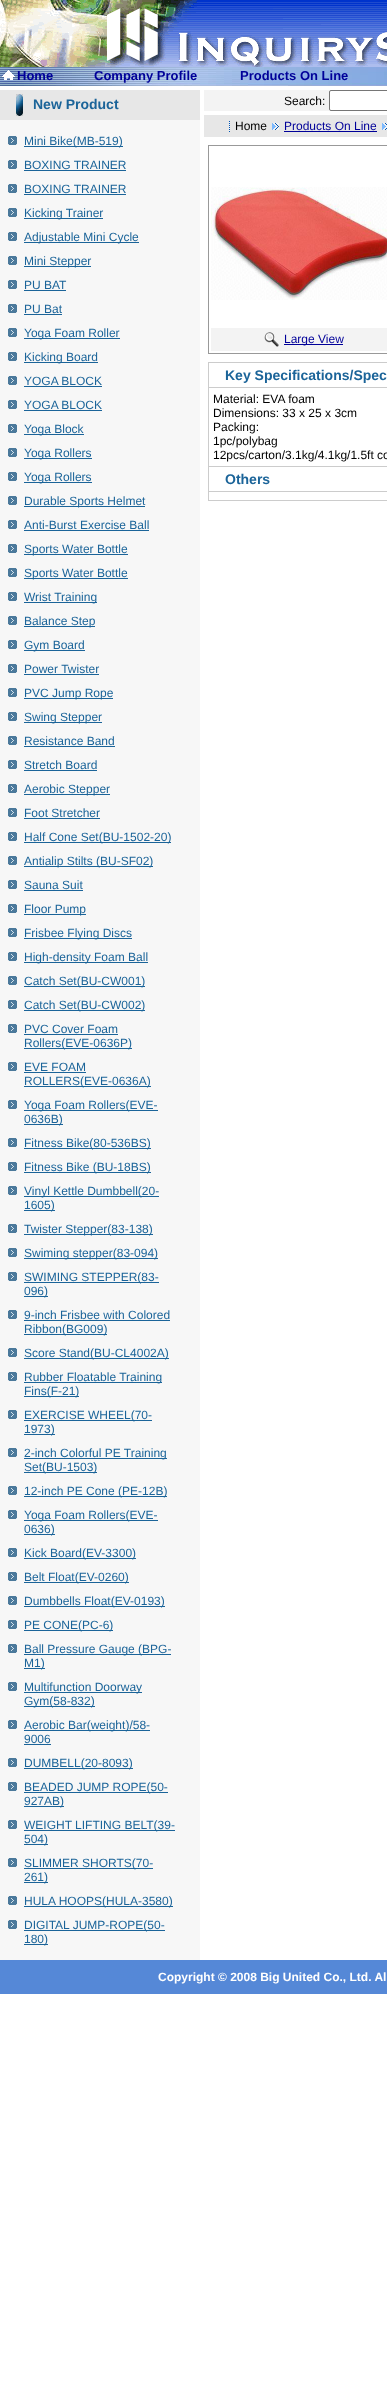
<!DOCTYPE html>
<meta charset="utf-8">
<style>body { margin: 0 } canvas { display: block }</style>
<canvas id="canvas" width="387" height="2392"></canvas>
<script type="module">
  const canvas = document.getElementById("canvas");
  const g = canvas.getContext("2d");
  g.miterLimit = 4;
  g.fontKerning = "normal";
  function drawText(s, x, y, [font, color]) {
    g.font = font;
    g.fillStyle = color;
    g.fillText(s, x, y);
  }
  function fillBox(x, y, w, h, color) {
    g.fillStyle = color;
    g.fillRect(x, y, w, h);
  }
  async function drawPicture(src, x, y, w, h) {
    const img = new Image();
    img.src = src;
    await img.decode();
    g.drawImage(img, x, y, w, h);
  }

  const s1 = ["bold 13px Liberation Sans", "#000099"];
  const s2 = ["bold 14px Liberation Sans", "#1B6499"];
  const s3 = ["12px Liberation Sans", "#1B6499"];
  const s4 = ["12px Liberation Sans", "#000000"];
  const s5 = ["12px Liberation Sans", "#000099"];
  const s6 = ["bold 12px Liberation Sans", "#FFFFFF"];

  fillBox(0, 0, 387, 2392, "#FFFFFF");
  await drawPicture("pic1.png", 0, 0, 387, 67);
  await drawPicture("pic2.png", 0, 67, 387, 19);
  await drawPicture("pic3.png", 2, 70, 13, 10);
  drawText("Home", 17, 80, s1);
  drawText("Company Profile", 94, 80, s1);
  drawText("Products On Line", 240, 80, s1);
  fillBox(0, 90, 200, 30, "#E7E7E7");
  await drawPicture("pic4.png", 16, 94, 7, 22);
  drawText("New Product", 33, 109, s2);
  fillBox(0, 120, 200, 1840, "#F7F7F7");
  await drawPicture("pic5.png", 8, 136, 9, 9);
  fillBox(24, 146, 99, 1, "#1B6499");
  drawText("Mini Bike(MB-519)", 24, 145, s3);
  await drawPicture("pic5.png", 8, 160, 9, 9);
  drawText("BOXING TRAINER", 24, 169, s3);
  fillBox(24, 170, 102, 1, "#1B6499");
  await drawPicture("pic5.png", 8, 184, 9, 9);
  drawText("BOXING TRAINER", 24, 193, s3);
  fillBox(24, 194, 102, 1, "#1B6499");
  await drawPicture("pic5.png", 8, 208, 9, 9);
  fillBox(24, 218, 79, 1, "#1B6499");
  drawText("Kicking Trainer", 24, 217, s3);
  await drawPicture("pic5.png", 8, 232, 9, 9);
  fillBox(24, 242, 115, 1, "#1B6499");
  drawText("Adjustable Mini Cycle", 24, 241, s3);
  await drawPicture("pic5.png", 8, 256, 9, 9);
  fillBox(24, 266, 67, 1, "#1B6499");
  drawText("Mini Stepper", 24, 265, s3);
  await drawPicture("pic5.png", 8, 280, 9, 9);
  drawText("PU BAT", 24, 289, s3);
  fillBox(24, 290, 42, 1, "#1B6499");
  await drawPicture("pic5.png", 8, 304, 9, 9);
  drawText("PU Bat", 24, 313, s3);
  fillBox(24, 314, 38, 1, "#1B6499");
  await drawPicture("pic5.png", 8, 328, 9, 9);
  fillBox(24, 338, 96, 1, "#1B6499");
  drawText("Yoga Foam Roller", 24, 337, s3);
  await drawPicture("pic5.png", 8, 352, 9, 9);
  fillBox(24, 362, 74, 1, "#1B6499");
  drawText("Kicking Board", 24, 361, s3);
  await drawPicture("pic5.png", 8, 376, 9, 9);
  drawText("YOGA BLOCK", 24, 385, s3);
  fillBox(24, 386, 78, 1, "#1B6499");
  await drawPicture("pic5.png", 8, 400, 9, 9);
  drawText("YOGA BLOCK", 24, 409, s3);
  fillBox(24, 410, 78, 1, "#1B6499");
  await drawPicture("pic5.png", 8, 424, 9, 9);
  fillBox(24, 434, 60, 1, "#1B6499");
  drawText("Yoga Block", 24, 433, s3);
  await drawPicture("pic5.png", 8, 448, 9, 9);
  fillBox(24, 458, 68, 1, "#1B6499");
  drawText("Yoga Rollers", 24, 457, s3);
  await drawPicture("pic5.png", 8, 472, 9, 9);
  fillBox(24, 482, 68, 1, "#1B6499");
  drawText("Yoga Rollers", 24, 481, s3);
  await drawPicture("pic5.png", 8, 496, 9, 9);
  fillBox(24, 506, 121, 1, "#1B6499");
  drawText("Durable Sports Helmet", 24, 505, s3);
  await drawPicture("pic5.png", 8, 520, 9, 9);
  drawText("Anti-Burst Exercise Ball", 24, 529, s3);
  fillBox(24, 530, 125, 1, "#1B6499");
  await drawPicture("pic5.png", 8, 544, 9, 9);
  fillBox(24, 554, 104, 1, "#1B6499");
  drawText("Sports Water Bottle", 24, 553, s3);
  await drawPicture("pic5.png", 8, 568, 9, 9);
  fillBox(24, 578, 104, 1, "#1B6499");
  drawText("Sports Water Bottle", 24, 577, s3);
  await drawPicture("pic5.png", 8, 592, 9, 9);
  fillBox(24, 602, 73, 1, "#1B6499");
  drawText("Wrist Training", 24, 601, s3);
  await drawPicture("pic5.png", 8, 616, 9, 9);
  fillBox(24, 626, 71, 1, "#1B6499");
  drawText("Balance Step", 24, 625, s3);
  await drawPicture("pic5.png", 8, 640, 9, 9);
  fillBox(24, 650, 61, 1, "#1B6499");
  drawText("Gym Board", 24, 649, s3);
  await drawPicture("pic5.png", 8, 664, 9, 9);
  drawText("Power Twister", 24, 673, s3);
  fillBox(24, 674, 75, 1, "#1B6499");
  await drawPicture("pic5.png", 8, 688, 9, 9);
  fillBox(24, 698, 89, 1, "#1B6499");
  drawText("PVC Jump Rope", 24, 697, s3);
  await drawPicture("pic5.png", 8, 712, 9, 9);
  fillBox(24, 722, 78, 1, "#1B6499");
  drawText("Swing Stepper", 24, 721, s3);
  await drawPicture("pic5.png", 8, 736, 9, 9);
  drawText("Resistance Band", 24, 745, s3);
  fillBox(24, 746, 91, 1, "#1B6499");
  await drawPicture("pic5.png", 8, 760, 9, 9);
  drawText("Stretch Board", 24, 769, s3);
  fillBox(24, 770, 73, 1, "#1B6499");
  await drawPicture("pic5.png", 8, 784, 9, 9);
  fillBox(24, 794, 86, 1, "#1B6499");
  drawText("Aerobic Stepper", 24, 793, s3);
  await drawPicture("pic5.png", 8, 808, 9, 9);
  drawText("Foot Stretcher", 24, 817, s3);
  fillBox(24, 818, 76, 1, "#1B6499");
  await drawPicture("pic5.png", 8, 832, 9, 9);
  fillBox(24, 842, 147, 1, "#1B6499");
  drawText("Half Cone Set(BU-1502-20)", 24, 841, s3);
  await drawPicture("pic5.png", 8, 856, 9, 9);
  fillBox(24, 866, 129, 1, "#1B6499");
  drawText("Antialip Stilts (BU-SF02)", 24, 865, s3);
  await drawPicture("pic5.png", 8, 880, 9, 9);
  drawText("Sauna Suit", 24, 889, s3);
  fillBox(24, 890, 59, 1, "#1B6499");
  await drawPicture("pic5.png", 8, 904, 9, 9);
  fillBox(24, 914, 62, 1, "#1B6499");
  drawText("Floor Pump", 24, 913, s3);
  await drawPicture("pic5.png", 8, 928, 9, 9);
  fillBox(24, 938, 108, 1, "#1B6499");
  drawText("Frisbee Flying Discs", 24, 937, s3);
  await drawPicture("pic5.png", 8, 952, 9, 9);
  fillBox(24, 962, 124, 1, "#1B6499");
  drawText("High-density Foam Ball", 24, 961, s3);
  await drawPicture("pic5.png", 8, 976, 9, 9);
  fillBox(24, 986, 121, 1, "#1B6499");
  drawText("Catch Set(BU-CW001)", 24, 985, s3);
  await drawPicture("pic5.png", 8, 1000, 9, 9);
  fillBox(24, 1010, 121, 1, "#1B6499");
  drawText("Catch Set(BU-CW002)", 24, 1009, s3);
  await drawPicture("pic5.png", 8, 1024, 9, 9);
  drawText("PVC Cover Foam", 24, 1033, s3);
  fillBox(24, 1034, 94, 1, "#1B6499");
  fillBox(24, 1048, 108, 1, "#1B6499");
  drawText("Rollers(EVE-0636P)", 24, 1047, s3);
  await drawPicture("pic5.png", 8, 1062, 9, 9);
  drawText("EVE FOAM", 24, 1071, s3);
  fillBox(24, 1072, 62, 1, "#1B6499");
  fillBox(24, 1086, 127, 1, "#1B6499");
  drawText("ROLLERS(EVE-0636A)", 24, 1085, s3);
  await drawPicture("pic5.png", 8, 1100, 9, 9);
  fillBox(24, 1110, 134, 1, "#1B6499");
  drawText("Yoga Foam Rollers(EVE-", 24, 1109, s3);
  fillBox(24, 1124, 39, 1, "#1B6499");
  drawText("0636B)", 24, 1123, s3);
  await drawPicture("pic5.png", 8, 1138, 9, 9);
  fillBox(24, 1148, 127, 1, "#1B6499");
  drawText("Fitness Bike(80-536BS)", 24, 1147, s3);
  await drawPicture("pic5.png", 8, 1162, 9, 9);
  fillBox(24, 1172, 127, 1, "#1B6499");
  drawText("Fitness Bike (BU-18BS)", 24, 1171, s3);
  await drawPicture("pic5.png", 8, 1186, 9, 9);
  fillBox(24, 1196, 135, 1, "#1B6499");
  drawText("Vinyl Kettle Dumbbell(20-", 24, 1195, s3);
  fillBox(24, 1210, 31, 1, "#1B6499");
  drawText("1605)", 24, 1209, s3);
  await drawPicture("pic5.png", 8, 1224, 9, 9);
  fillBox(24, 1234, 129, 1, "#1B6499");
  drawText("Twister Stepper(83-138)", 24, 1233, s3);
  await drawPicture("pic5.png", 8, 1248, 9, 9);
  fillBox(24, 1258, 134, 1, "#1B6499");
  drawText("Swiming stepper(83-094)", 24, 1257, s3);
  await drawPicture("pic5.png", 8, 1272, 9, 9);
  fillBox(24, 1282, 135, 1, "#1B6499");
  drawText("SWIMING STEPPER(83-", 24, 1281, s3);
  fillBox(24, 1296, 24, 1, "#1B6499");
  drawText("096)", 24, 1295, s3);
  await drawPicture("pic5.png", 8, 1310, 9, 9);
  drawText("9-inch Frisbee with Colored", 24, 1319, s3);
  fillBox(24, 1320, 146, 1, "#1B6499");
  fillBox(24, 1334, 83, 1, "#1B6499");
  drawText("Ribbon(BG009)", 24, 1333, s3);
  await drawPicture("pic5.png", 8, 1348, 9, 9);
  fillBox(24, 1358, 145, 1, "#1B6499");
  drawText("Score Stand(BU-CL4002A)", 24, 1357, s3);
  await drawPicture("pic5.png", 8, 1372, 9, 9);
  fillBox(24, 1382, 138, 1, "#1B6499");
  drawText("Rubber Floatable Training", 24, 1381, s3);
  fillBox(24, 1396, 55, 1, "#1B6499");
  drawText("Fins(F-21)", 24, 1395, s3);
  await drawPicture("pic5.png", 8, 1410, 9, 9);
  fillBox(24, 1420, 128, 1, "#1B6499");
  drawText("EXERCISE WHEEL(70-", 24, 1419, s3);
  fillBox(24, 1434, 31, 1, "#1B6499");
  drawText("1973)", 24, 1433, s3);
  await drawPicture("pic5.png", 8, 1448, 9, 9);
  fillBox(24, 1458, 143, 1, "#1B6499");
  drawText("2-inch Colorful PE Training", 24, 1457, s3);
  fillBox(24, 1472, 73, 1, "#1B6499");
  drawText("Set(BU-1503)", 24, 1471, s3);
  await drawPicture("pic5.png", 8, 1486, 9, 9);
  fillBox(24, 1496, 143, 1, "#1B6499");
  drawText("12-inch PE Cone (PE-12B)", 24, 1495, s3);
  await drawPicture("pic5.png", 8, 1510, 9, 9);
  fillBox(24, 1520, 134, 1, "#1B6499");
  drawText("Yoga Foam Rollers(EVE-", 24, 1519, s3);
  fillBox(24, 1534, 31, 1, "#1B6499");
  drawText("0636)", 24, 1533, s3);
  await drawPicture("pic5.png", 8, 1548, 9, 9);
  fillBox(24, 1558, 112, 1, "#1B6499");
  drawText("Kick Board(EV-3300)", 24, 1557, s3);
  await drawPicture("pic5.png", 8, 1572, 9, 9);
  fillBox(24, 1582, 105, 1, "#1B6499");
  drawText("Belt Float(EV-0260)", 24, 1581, s3);
  await drawPicture("pic5.png", 8, 1596, 9, 9);
  fillBox(24, 1606, 141, 1, "#1B6499");
  drawText("Dumbbells Float(EV-0193)", 24, 1605, s3);
  await drawPicture("pic5.png", 8, 1620, 9, 9);
  fillBox(24, 1630, 89, 1, "#1B6499");
  drawText("PE CONE(PC-6)", 24, 1629, s3);
  await drawPicture("pic5.png", 8, 1644, 9, 9);
  fillBox(24, 1654, 147, 1, "#1B6499");
  drawText("Ball Pressure Gauge (BPG-", 24, 1653, s3);
  fillBox(24, 1668, 21, 1, "#1B6499");
  drawText("M1)", 24, 1667, s3);
  await drawPicture("pic5.png", 8, 1682, 9, 9);
  fillBox(24, 1692, 118, 1, "#1B6499");
  drawText("Multifunction Doorway", 24, 1691, s3);
  fillBox(24, 1706, 71, 1, "#1B6499");
  drawText("Gym(58-832)", 24, 1705, s3);
  await drawPicture("pic5.png", 8, 1720, 9, 9);
  fillBox(24, 1730, 126, 1, "#1B6499");
  drawText("Aerobic Bar(weight)/58-", 24, 1729, s3);
  drawText("9006", 24, 1743, s3);
  fillBox(24, 1744, 27, 1, "#1B6499");
  await drawPicture("pic5.png", 8, 1758, 9, 9);
  fillBox(24, 1768, 109, 1, "#1B6499");
  drawText("DUMBELL(20-8093)", 24, 1767, s3);
  await drawPicture("pic5.png", 8, 1782, 9, 9);
  fillBox(24, 1792, 144, 1, "#1B6499");
  drawText("BEADED JUMP ROPE(50-", 24, 1791, s3);
  fillBox(24, 1806, 40, 1, "#1B6499");
  drawText("927AB)", 24, 1805, s3);
  await drawPicture("pic5.png", 8, 1820, 9, 9);
  fillBox(24, 1830, 151, 1, "#1B6499");
  drawText("WEIGHT LIFTING BELT(39-", 24, 1829, s3);
  fillBox(24, 1844, 24, 1, "#1B6499");
  drawText("504)", 24, 1843, s3);
  await drawPicture("pic5.png", 8, 1858, 9, 9);
  fillBox(24, 1868, 129, 1, "#1B6499");
  drawText("SLIMMER SHORTS(70-", 24, 1867, s3);
  fillBox(24, 1882, 24, 1, "#1B6499");
  drawText("261)", 24, 1881, s3);
  await drawPicture("pic5.png", 8, 1896, 9, 9);
  fillBox(24, 1906, 149, 1, "#1B6499");
  drawText("HULA HOOPS(HULA-3580)", 24, 1905, s3);
  await drawPicture("pic5.png", 8, 1920, 9, 9);
  fillBox(24, 1930, 141, 1, "#1B6499");
  drawText("DIGITAL JUMP-ROPE(50-", 24, 1929, s3);
  fillBox(24, 1944, 24, 1, "#1B6499");
  drawText("180)", 24, 1943, s3);
  fillBox(204, 90, 127, 21, "#F3F3F3");
  drawText("Search:", 284, 105, s4);
  g.fillStyle = "#FFFFFF";
  g.beginPath();
  g.roundRect(329.5, 90.5, 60, 20, 1.5);
  g.fill();
  g.strokeStyle = "#767676";
  g.stroke();
  fillBox(204, 115, 183, 22, "#E7E7E7");
  await drawPicture("pic6.png", 229, 121, 1, 11);
  drawText("Home", 235, 130, s4);
  await drawPicture("pic7.png", 272, 123, 7, 7);
  drawText("Products On Line", 284, 130, s5);
  fillBox(284, 131, 93, 1, "#000099");
  await drawPicture("pic8.png", 382, 123, 5, 7);
  g.strokeStyle = "#999999";
  g.strokeRect(208.5, 145.5, 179, 208);
  await drawPicture("pic9.png", 211, 187, 176, 113);
  fillBox(211, 328, 176, 23, "#F3F3F3");
  await drawPicture("pic10.png", 264, 332, 15, 15);
  fillBox(284, 344, 59, 1, "#000099");
  drawText("Large View", 284, 343, s5);
  fillBox(208, 362, 179, 139, "#CCCCCC");
  fillBox(209, 363, 178, 24, "#FFFFFF");
  drawText("Key Specifications/Spec", 225, 380, s2);
  fillBox(209, 388, 178, 78, "#FFFFFF");
  drawText("Material: EVA foam", 213, 403, s4);
  drawText("Dimensions: 33 x 25 x 3cm", 213, 417, s4);
  drawText("Packing:", 213, 431, s4);
  drawText("1pc/polybag", 213, 445, s4);
  drawText("12pcs/carton/3.1kg/4.1kg/1.5ft co", 213, 459, s4);
  fillBox(209, 467, 178, 24, "#FFFFFF");
  drawText("Others", 225, 484, s2);
  fillBox(209, 492, 178, 8, "#FFFFFF");
  fillBox(0, 1960, 387, 34, "#5588D7");
  drawText("Copyright © 2008 Big United Co., Ltd. Al", 158, 1981, s6);
</script>
